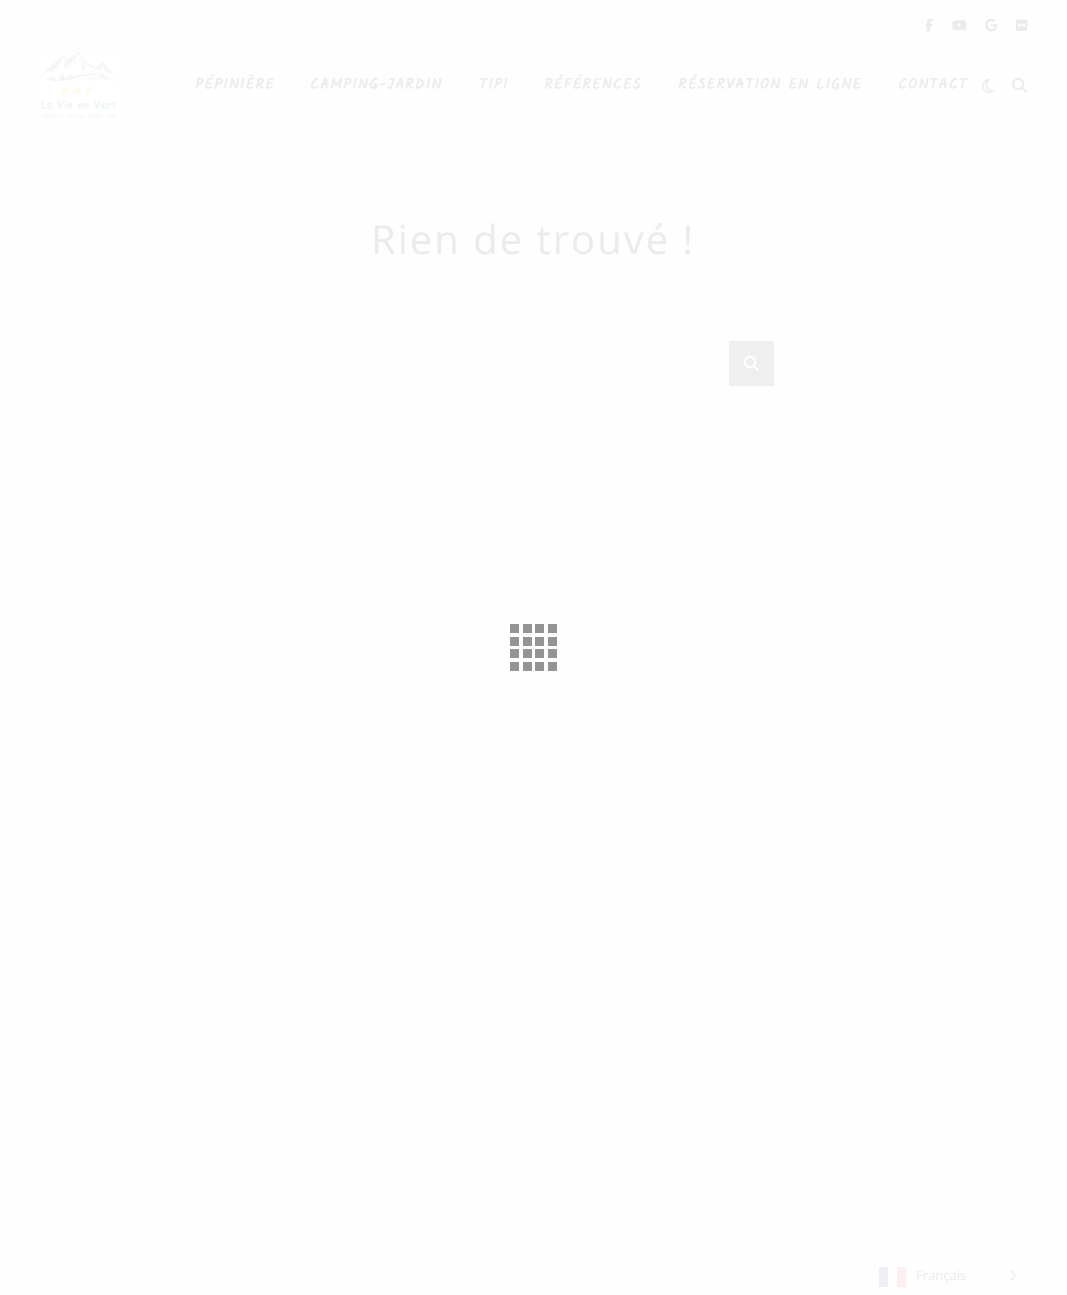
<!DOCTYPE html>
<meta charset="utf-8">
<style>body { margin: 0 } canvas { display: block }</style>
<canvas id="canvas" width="1067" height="1295"></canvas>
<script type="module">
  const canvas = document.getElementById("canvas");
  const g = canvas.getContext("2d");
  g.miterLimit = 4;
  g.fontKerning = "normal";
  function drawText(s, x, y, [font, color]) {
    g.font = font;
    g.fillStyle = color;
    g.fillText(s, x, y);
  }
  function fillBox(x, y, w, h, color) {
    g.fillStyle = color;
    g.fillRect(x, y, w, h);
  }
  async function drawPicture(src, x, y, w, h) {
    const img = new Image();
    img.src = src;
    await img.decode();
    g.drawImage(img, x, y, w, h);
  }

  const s1 = ["bold 15px Kalam", "#EBEBEB"];
  const s2 = ["40px Open Sans", "#EBEBEB"];
  const s3 = ["13px Open Sans", "#EBEBEB"];

  fillBox(0, 0, 1067, 1295, "#FEFEFE");
  await drawPicture("pic1.png", 925, 18, 8, 14);
  await drawPicture("pic2.png", 952, 20, 15, 10);
  await drawPicture("pic3.png", 985, 18, 13, 14);
  await drawPicture("pic4.png", 1016, 19, 12, 12);
  await drawPicture("pic5.png", 40, 51, 78, 69);
  g.letterSpacing = "1px";
  drawText("PÉPINIÈRE", 195, 89, s1);
  drawText("CAMPING-JARDIN", 310, 89, s1);
  drawText("TIPI", 479, 89, s1);
  drawText("RÉFÉRENCES", 544, 89, s1);
  drawText("RÉSERVATION EN LIGNE", 678, 89, s1);
  drawText("CONTACT", 898, 89, s1);
  await drawPicture("pic6.png", 982, 79, 12, 14);
  await drawPicture("pic7.png", 1012, 77, 15, 16);
  g.letterSpacing = "2px";
  drawText("Rien de trouvé !", 371, 254, s2);
  fillBox(729, 341, 45, 45, "#EFEFEF");
  await drawPicture("pic8.png", 744, 355, 15, 16);
  fillBox(510, 624, 9, 9, "#949494");
  fillBox(523, 624, 9, 9, "#949494");
  fillBox(535, 624, 9, 9, "#949494");
  fillBox(548, 624, 9, 9, "#949494");
  fillBox(510, 637, 9, 9, "#949494");
  fillBox(523, 637, 9, 9, "#949494");
  fillBox(535, 637, 9, 9, "#949494");
  fillBox(548, 637, 9, 9, "#949494");
  fillBox(510, 649, 9, 9, "#949494");
  fillBox(523, 649, 9, 9, "#949494");
  fillBox(535, 649, 9, 9, "#949494");
  fillBox(548, 649, 9, 9, "#949494");
  fillBox(510, 662, 9, 9, "#949494");
  fillBox(523, 662, 9, 9, "#949494");
  fillBox(535, 662, 9, 9, "#949494");
  fillBox(548, 662, 9, 9, "#949494");
  fillBox(879, 1267, 9, 20, "#EFEFF8");
  fillBox(897, 1267, 9, 20, "#FDEFF0");
  g.letterSpacing = "0px";
  drawText("Français", 916, 1280, s3);
  await drawPicture("pic9.png", 1010, 1270, 6, 11);
</script>
